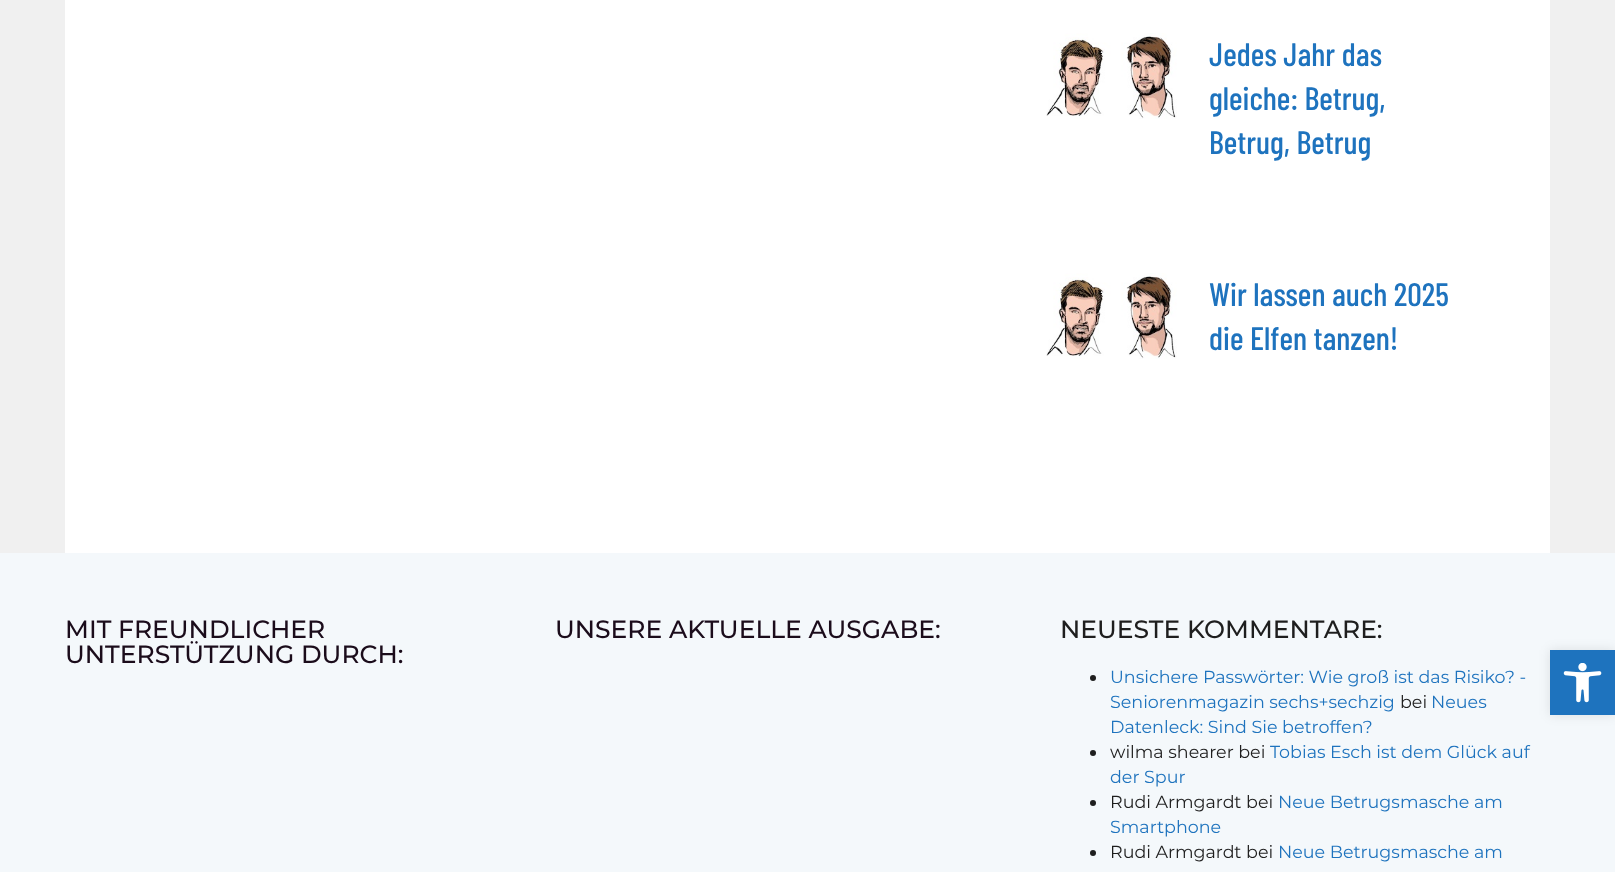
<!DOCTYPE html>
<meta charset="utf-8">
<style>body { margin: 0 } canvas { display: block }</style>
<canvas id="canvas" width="1615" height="872"></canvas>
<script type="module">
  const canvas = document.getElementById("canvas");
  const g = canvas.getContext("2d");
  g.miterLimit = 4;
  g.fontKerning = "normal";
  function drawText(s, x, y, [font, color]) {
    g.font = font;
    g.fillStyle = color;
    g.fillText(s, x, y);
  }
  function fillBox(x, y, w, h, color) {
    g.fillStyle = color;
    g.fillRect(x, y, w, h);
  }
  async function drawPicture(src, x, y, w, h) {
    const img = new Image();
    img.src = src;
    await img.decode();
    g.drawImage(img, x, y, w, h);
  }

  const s1 = ["500 32.5px Barlow Condensed", "#1E73BE"];
  const s2 = ["500 25px Montserrat", "#1B0C1B"];
  const s3 = ["500 25px Montserrat", "#1E1E1E"];
  const s4 = ["17.5px Montserrat", "#1E73BE"];
  const s5 = ["17.5px Montserrat", "#1E1E1E"];

  fillBox(0, 0, 1615, 872, "#F0F0F0");
  fillBox(65, 0, 1485, 553, "#FFFFFF");
  await drawPicture("pic1.png", 1046, 33, 131, 86);
  drawText("Jedes Jahr das", 1209, 66, s1);
  drawText("gleiche: Betrug,", 1209, 110, s1);
  drawText("Betrug, Betrug", 1209, 154, s1);
  await drawPicture("pic1.png", 1046, 273, 131, 86);
  drawText("Wir lassen auch 2025", 1209, 306, s1);
  drawText("die Elfen tanzen!", 1209, 350, s1);
  fillBox(0, 553, 1615, 319, "#F4F8FB");
  drawText("MIT FREUNDLICHER", 65, 638, s2);
  drawText("UNTERSTÜTZUNG DURCH:", 65, 663, s2);
  drawText("UNSERE AKTUELLE AUSGABE:", 555, 638, s2);
  drawText("NEUESTE KOMMENTARE:", 1060, 638, s3);
  g.beginPath();
  g.arc(1093, 678, 3, 0, Math.PI * 2);
  g.fill();
  drawText("Unsichere Passwörter: Wie groß ist das Risiko? -", 1110, 683, s4);
  drawText("Seniorenmagazin sechs+sechzig", 1110, 708, s4);
  drawText("bei", 1400, 708, s5);
  drawText("Neues", 1431, 708, s4);
  drawText("Datenleck: Sind Sie betroffen?", 1110, 733, s4);
  g.fillStyle = "#1E1E1E";
  g.beginPath();
  g.arc(1093, 753, 3, 0, Math.PI * 2);
  g.fill();
  drawText("wilma shearer bei", 1110, 758, s5);
  drawText("Tobias Esch ist dem Glück auf", 1270, 758, s4);
  drawText("der Spur", 1110, 783, s4);
  g.fillStyle = "#1E1E1E";
  g.beginPath();
  g.arc(1093, 803, 3, 0, Math.PI * 2);
  g.fill();
  drawText("Rudi Armgardt bei", 1110, 808, s5);
  drawText("Neue Betrugsmasche am", 1278, 808, s4);
  drawText("Smartphone", 1110, 833, s4);
  g.fillStyle = "#1E1E1E";
  g.beginPath();
  g.arc(1093, 853, 3, 0, Math.PI * 2);
  g.fill();
  drawText("Rudi Armgardt bei", 1110, 858, s5);
  drawText("Neue Betrugsmasche am", 1278, 858, s4);
  g.fillStyle = "rgba(0, 0, 0, 0.1)";
  g.filter = "blur(6px)";
  g.beginPath();
  g.rect(1550, 650, 65, 65);
  g.fill();
  g.filter = "none";
  fillBox(1550, 650, 65, 65, "#1E73BE");
  await drawPicture("pic2.png", 1563, 663, 39, 40);
</script>
